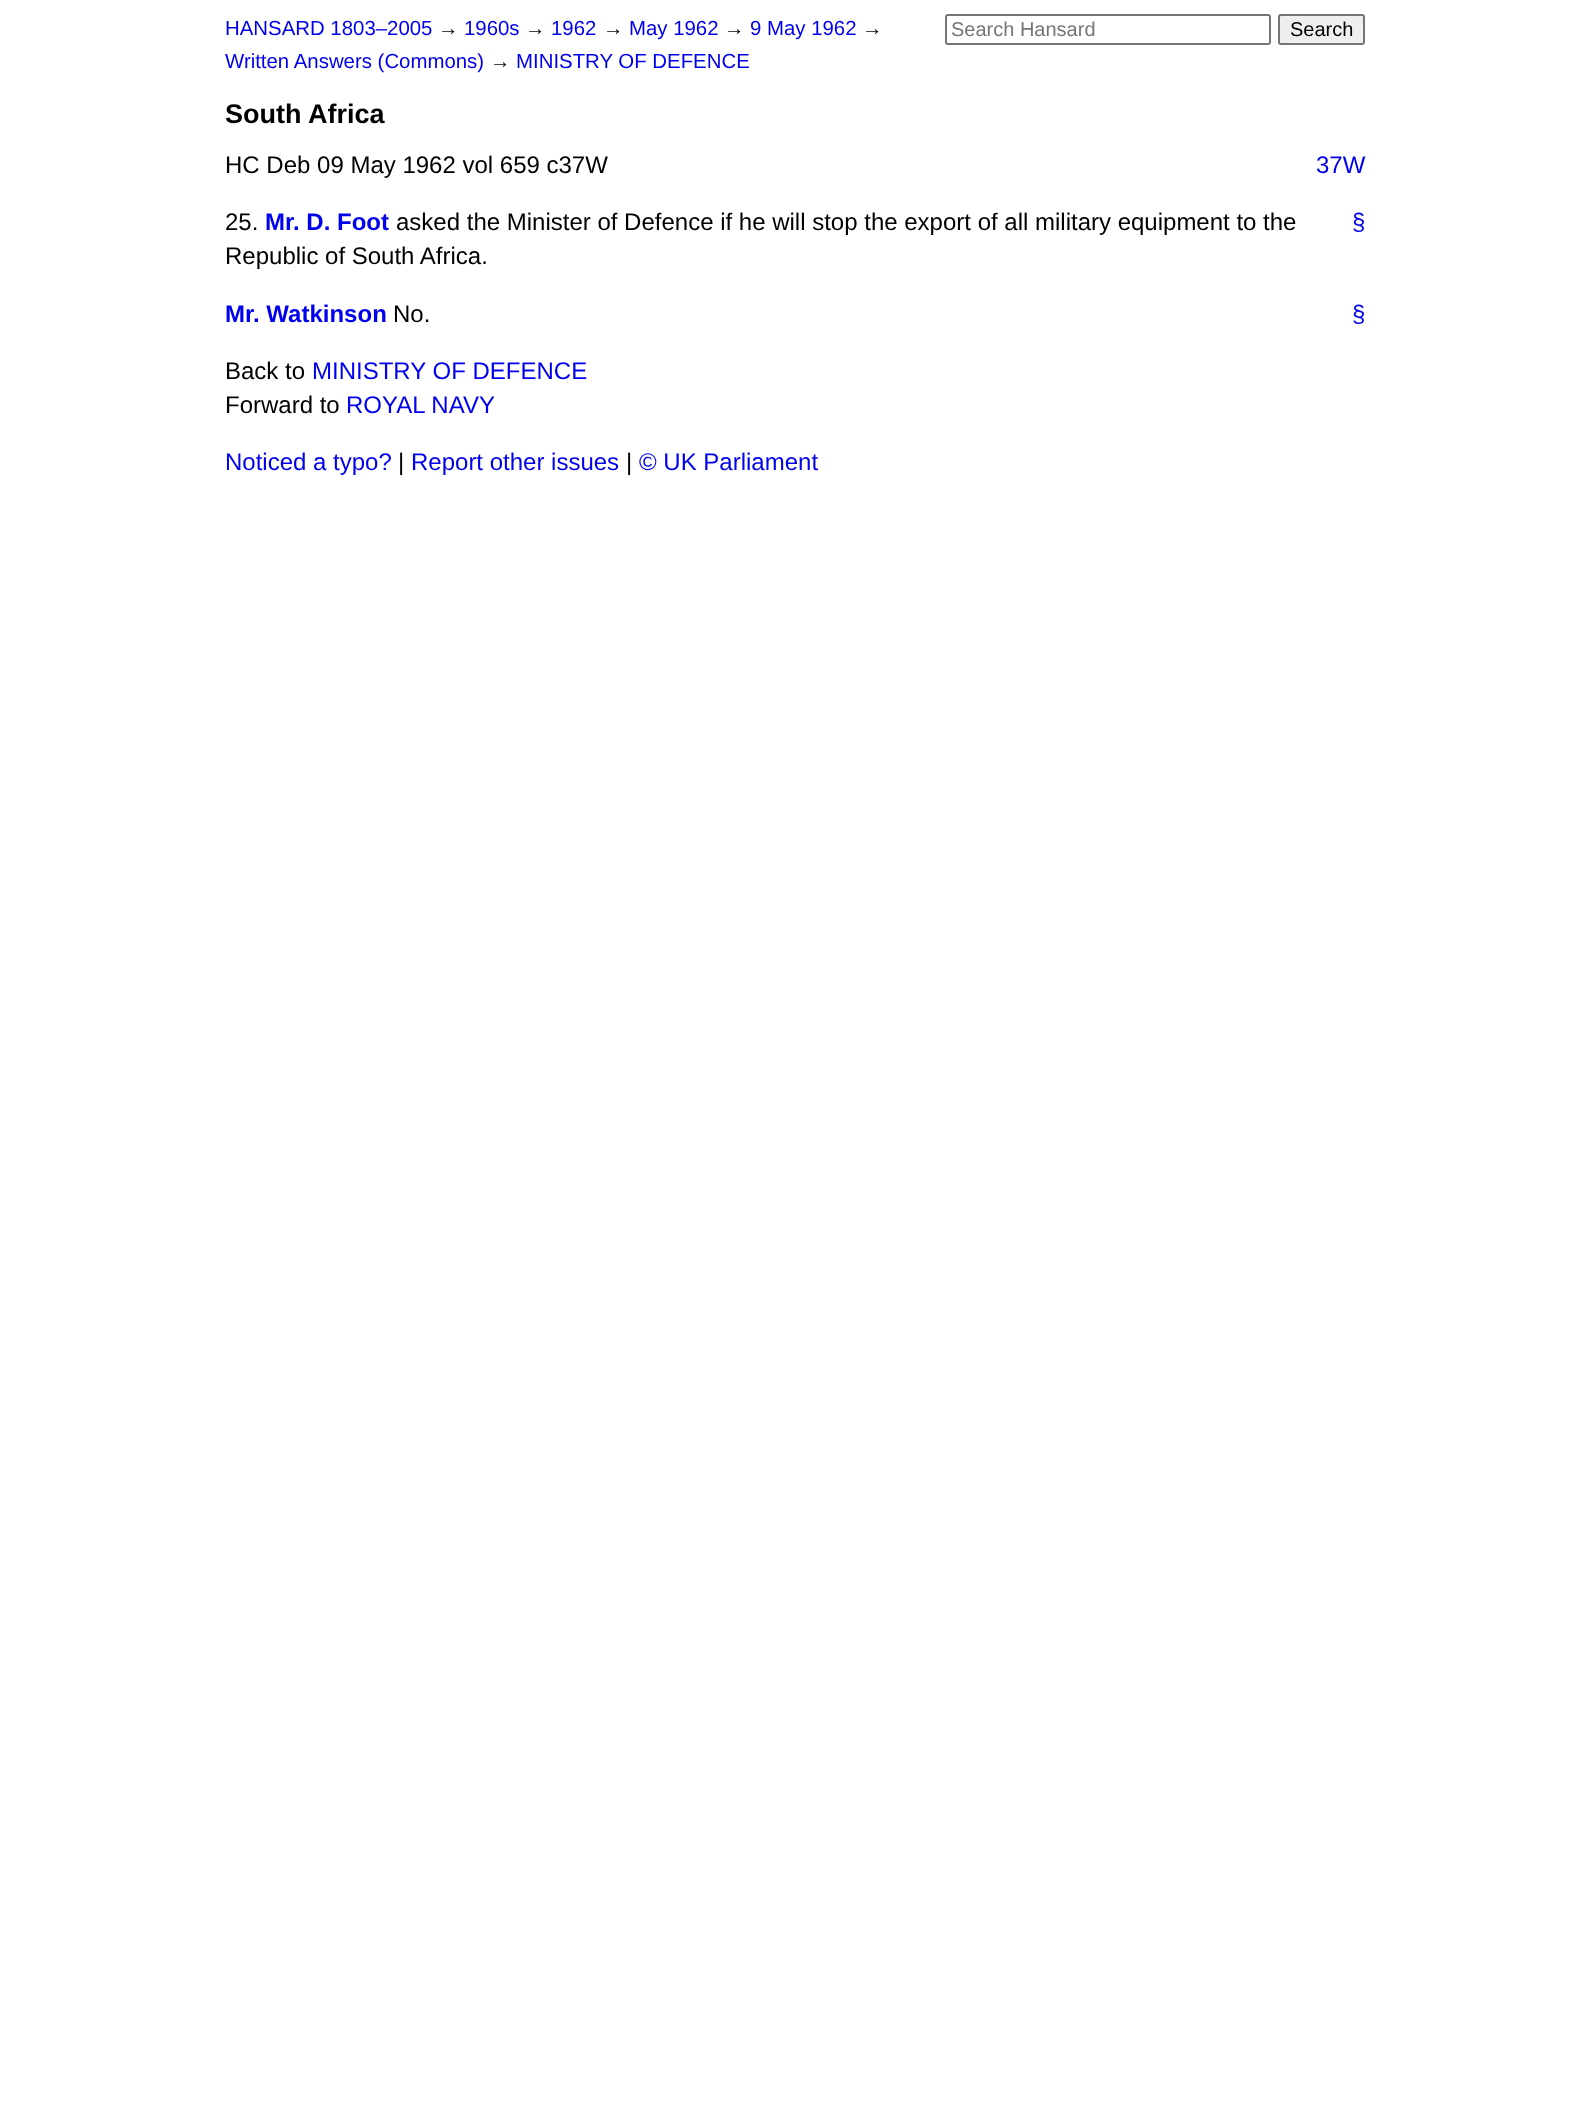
<!DOCTYPE html>
<meta charset="utf-8">
<style>body { margin: 0 } canvas { display: block }</style>
<canvas id="canvas" width="1590" height="2106"></canvas>
<script type="module">
  const canvas = document.getElementById("canvas");
  const g = canvas.getContext("2d");
  g.miterLimit = 4;
  g.fontKerning = "normal";
  function drawText(s, x, y, [font, color]) {
    g.font = font;
    g.fillStyle = color;
    g.fillText(s, x, y);
  }
  function fillBox(x, y, w, h, color) {
    g.fillStyle = color;
    g.fillRect(x, y, w, h);
  }

  const s1 = ["20.4px Liberation Sans", "#0000EE"];
  const s2 = ["20.4px Liberation Sans", "#000000"];
  const s3 = ["20px Liberation Sans", "#757575"];
  const s4 = ["20px Liberation Sans", "#000000"];
  const s5 = ["bold 27px Liberation Sans", "#000000"];
  const s6 = ["24px Liberation Sans", "#000000"];
  const s7 = ["24px Liberation Sans", "#0000EE"];
  const s8 = ["bold 24px Liberation Sans", "#0000EE"];

  fillBox(0, 0, 1590, 2106, "#FFFFFF");
  drawText("HANSARD 1803–2005", 225, 35, s1);
  drawText("→", 438, 35, s2);
  drawText("1960s", 464, 35, s1);
  drawText("→", 525, 35, s2);
  drawText("1962", 551, 35, s1);
  drawText("→", 603, 35, s2);
  drawText("May 1962", 629, 35, s1);
  drawText("→", 724, 35, s2);
  drawText("9 May 1962", 750, 35, s1);
  drawText("→", 862, 35, s2);
  drawText("Written Answers (Commons)", 225, 68, s1);
  drawText("→", 490, 68, s2);
  drawText("MINISTRY OF DEFENCE", 516, 68, s1);
  g.beginPath();
  g.roundRect(946, 15, 324, 29, 2);
  g.strokeStyle = "#767676";
  g.lineWidth = 2;
  g.stroke();
  drawText("Search Hansard", 951, 36, s3);
  g.fillStyle = "#EFEFEF";
  g.beginPath();
  g.roundRect(1279, 15, 85, 29, 2);
  g.fill();
  g.stroke();
  drawText("Search", 1290, 36, s4);
  drawText("South Africa", 225, 123, s5);
  drawText("HC Deb 09 May 1962 vol 659 c37W", 225, 173, s6);
  drawText("37W", 1316, 173, s7);
  drawText("25.", 225, 230, s6);
  drawText("Mr. D. Foot", 265, 230, s8);
  drawText("asked the Minister of Defence if he will stop the export of all military equipment to the", 396, 230, s6);
  drawText("§", 1352, 230, s7);
  drawText("Republic of South Africa.", 225, 264, s6);
  drawText("Mr. Watkinson", 225, 322, s8);
  drawText("No.", 393, 322, s6);
  drawText("§", 1352, 322, s7);
  drawText("Back to", 225, 379, s6);
  drawText("MINISTRY OF DEFENCE", 312, 379, s7);
  drawText("Forward to", 225, 413, s6);
  drawText("ROYAL NAVY", 346, 413, s7);
  drawText("Noticed a typo?", 225, 470, s7);
  drawText("|", 398, 470, s6);
  drawText("Report other issues", 411, 470, s7);
  drawText("|", 626, 470, s6);
  drawText("© UK Parliament", 639, 470, s7);
</script>
